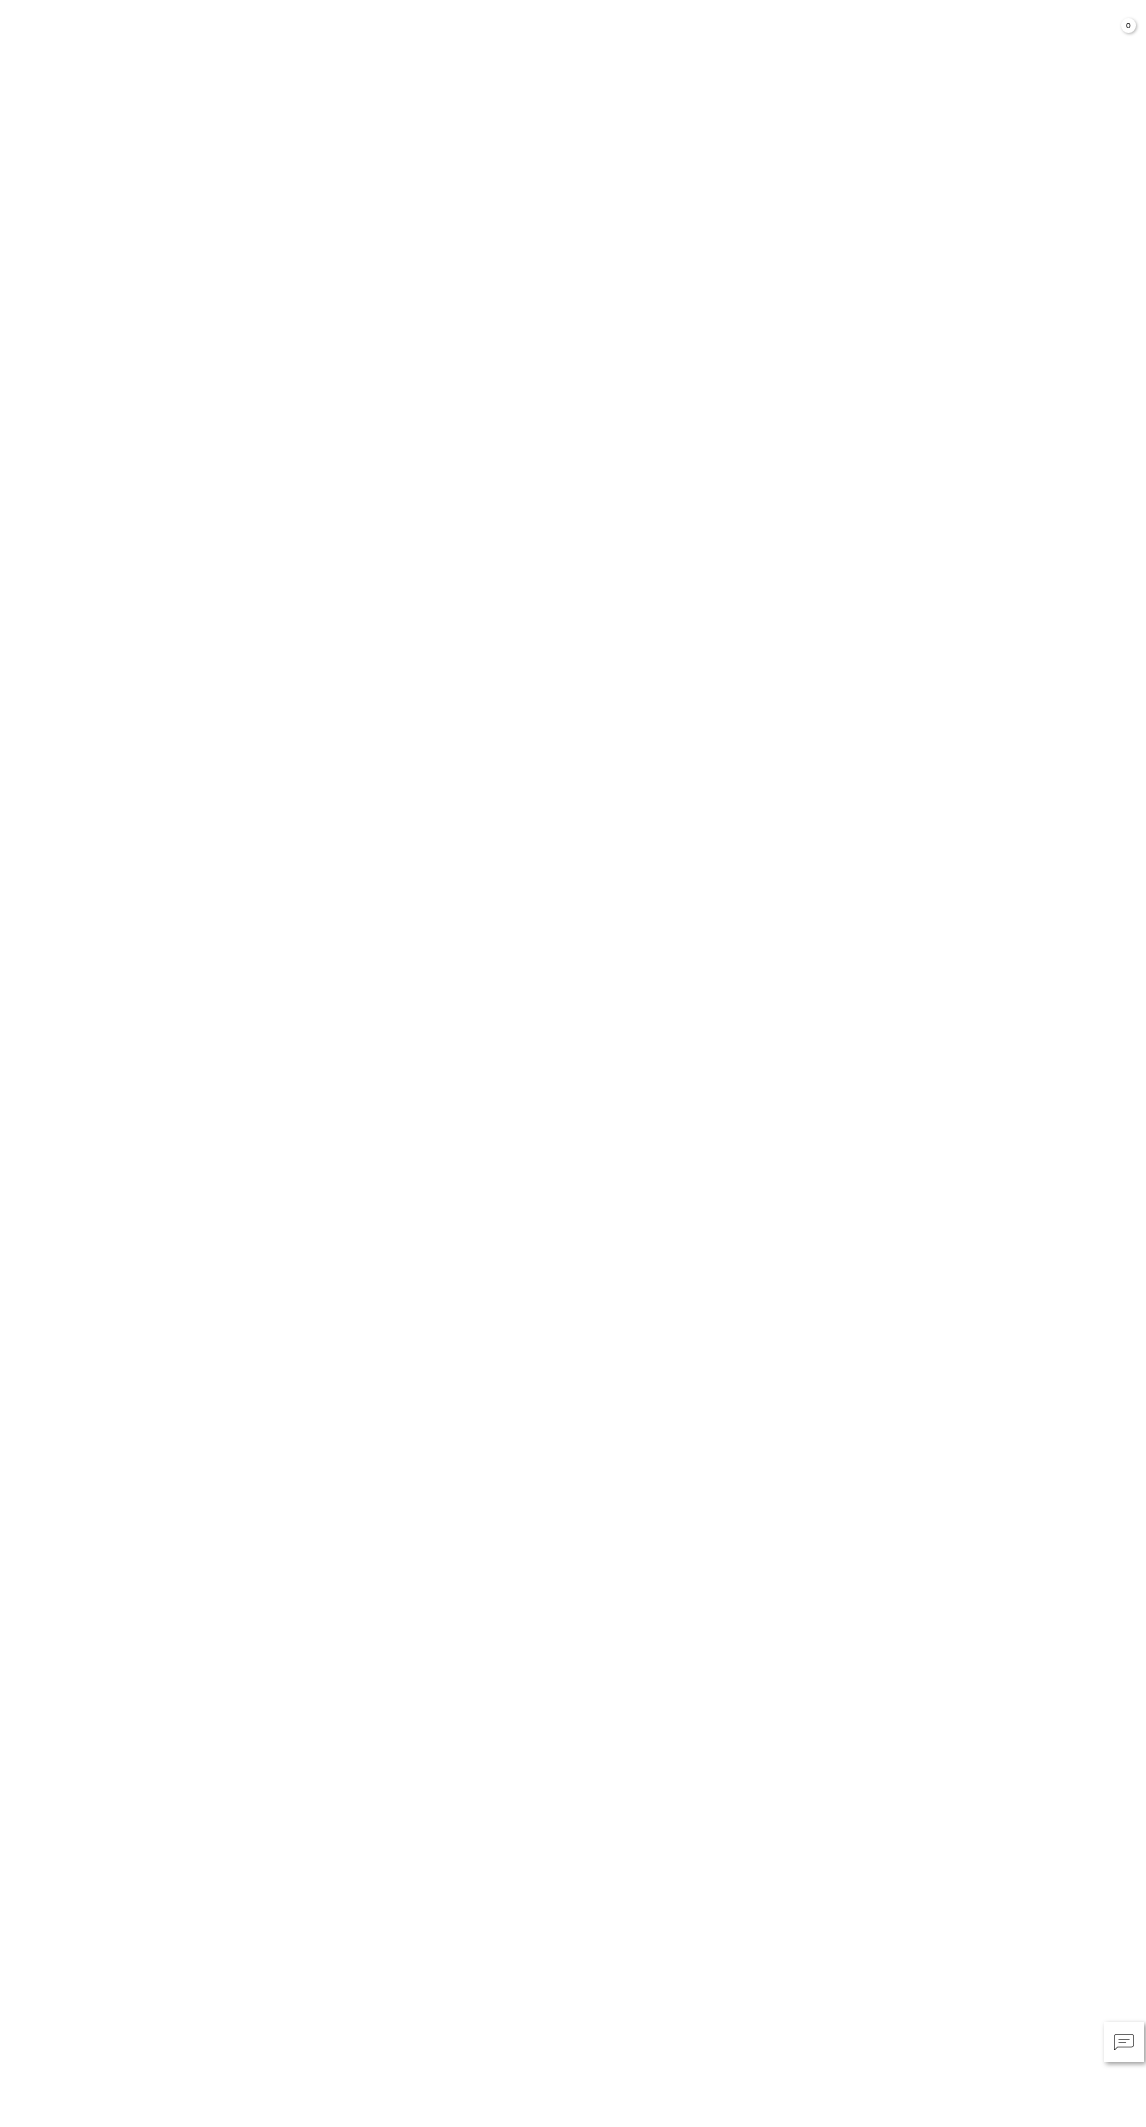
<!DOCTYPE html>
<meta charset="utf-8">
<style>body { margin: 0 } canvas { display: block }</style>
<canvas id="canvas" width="1146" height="2127"></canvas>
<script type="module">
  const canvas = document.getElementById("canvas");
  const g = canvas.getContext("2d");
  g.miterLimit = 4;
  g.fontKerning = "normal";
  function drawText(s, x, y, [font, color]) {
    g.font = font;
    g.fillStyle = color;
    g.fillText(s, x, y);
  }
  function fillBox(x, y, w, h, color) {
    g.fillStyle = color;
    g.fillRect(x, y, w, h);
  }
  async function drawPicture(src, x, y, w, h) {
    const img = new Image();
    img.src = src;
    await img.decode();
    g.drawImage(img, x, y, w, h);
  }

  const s1 = ["500 7px Montserrat", "#000000"];

  fillBox(0, 0, 1146, 2127, "#FFFFFF");
  g.fillStyle = "rgba(0, 0, 0, 0.3)";
  g.filter = "blur(1.5px)";
  g.beginPath();
  g.roundRect(1122, 19, 15, 15, 7.5);
  g.fill();
  g.filter = "none";
  g.fillStyle = "#FFFFFF";
  g.beginPath();
  g.arc(1128.5, 25.5, 7.5, 0, Math.PI * 2);
  g.fill();
  drawText("0", 1126, 28, s1);
  g.save();
  g.beginPath();
  g.moveTo(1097, 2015);
  g.lineTo(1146, 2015);
  g.lineTo(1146, 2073);
  g.lineTo(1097, 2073);
  g.closePath();
  g.moveTo(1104, 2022);
  g.lineTo(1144, 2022);
  g.lineTo(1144, 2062);
  g.lineTo(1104, 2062);
  g.closePath();
  g.clip("evenodd");
  g.fillStyle = "rgba(45, 45, 45, 0.5)";
  g.filter = "blur(2.5px)";
  g.beginPath();
  g.rect(1106, 2024, 40, 40);
  g.fill();
  g.filter = "none";
  g.restore();
  await drawPicture("pic1.png", 1114, 2034, 20, 16);
</script>
